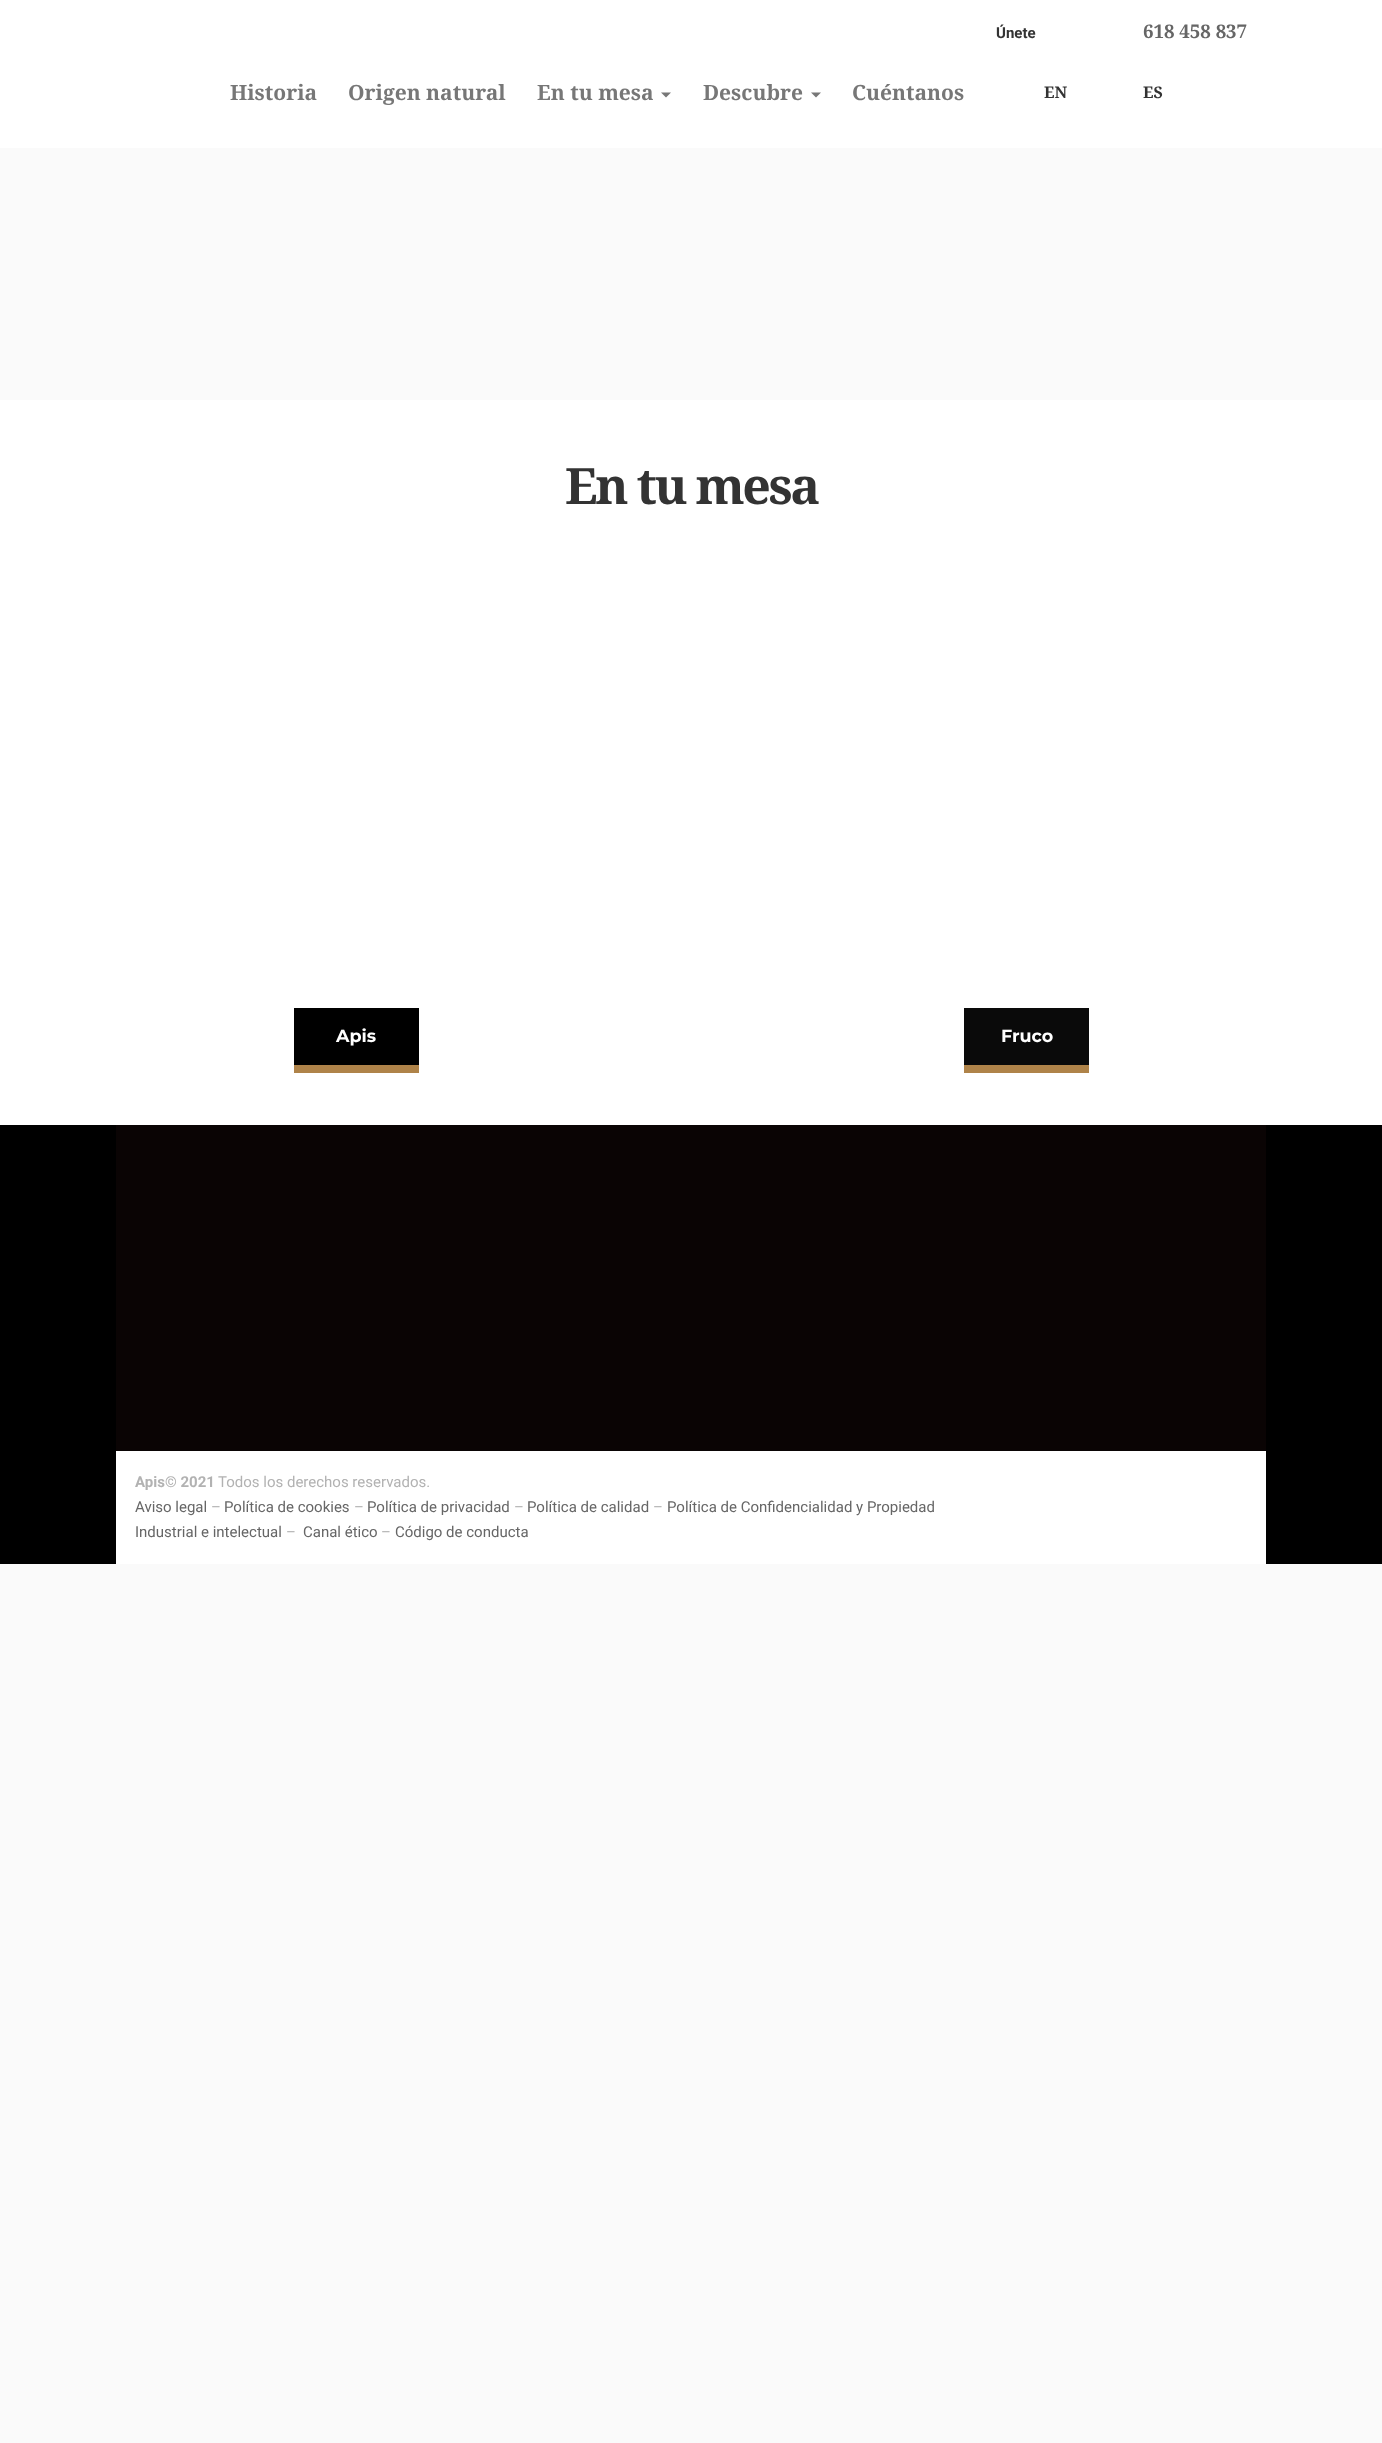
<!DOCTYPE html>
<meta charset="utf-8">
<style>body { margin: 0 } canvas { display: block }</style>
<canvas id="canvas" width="1382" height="2443"></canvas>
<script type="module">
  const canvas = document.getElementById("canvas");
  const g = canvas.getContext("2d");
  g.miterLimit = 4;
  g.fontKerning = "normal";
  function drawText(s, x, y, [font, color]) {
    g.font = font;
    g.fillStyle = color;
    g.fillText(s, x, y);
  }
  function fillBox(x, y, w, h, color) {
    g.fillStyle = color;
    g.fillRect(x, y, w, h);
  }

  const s1 = ["bold 15px Roboto", "#333333"];
  const s2 = ["bold 18.75px Droid Serif", "#666666"];
  const s3 = ["bold 21px Droid Serif", "#777777"];
  const s4 = ["bold 16px Droid Serif", "#333333"];
  const s5 = ["bold 50px Droid Serif", "#333333"];
  const s6 = ["bold 17.5px Montserrat", "#FFFFFF"];
  const s7 = ["bold 15px Roboto", "#B2B2B2"];
  const s8 = ["15px Roboto", "#B2B2B2"];
  const s9 = ["15px Roboto", "#666666"];

  fillBox(0, 0, 1382, 2443, "#FAFAFA");
  fillBox(0, 0, 1382, 148, "#FFFFFF");
  drawText("Únete", 996, 38, s1);
  drawText("618 458 837", 1143, 38, s2);
  drawText("Historia", 230, 100, s3);
  drawText("Origen natural", 348, 100, s3);
  drawText("En tu mesa", 537, 100, s3);
  g.beginPath();
  g.moveTo(661, 92.5);
  g.lineTo(671, 92.5);
  g.lineTo(666, 97.5);
  g.closePath();
  g.fill();
  drawText("Descubre", 703, 100, s3);
  g.beginPath();
  g.moveTo(811, 92.5);
  g.lineTo(821, 92.5);
  g.lineTo(816, 97.5);
  g.closePath();
  g.fill();
  drawText("Cuéntanos", 852, 100, s3);
  drawText("EN", 1044, 98, s4);
  drawText("ES", 1143, 98, s4);
  fillBox(0, 400, 1382, 725, "#FFFFFF");
  g.letterSpacing = "-2.5px";
  drawText("En tu mesa", 565, 504, s5);
  fillBox(294, 1008, 125, 57, "#000000");
  fillBox(294, 1065, 125, 8, "#AF8349");
  g.letterSpacing = "0px";
  drawText("Apis", 336, 1042, s6);
  fillBox(964, 1008, 125, 57, "#0A0A0A");
  fillBox(964, 1065, 125, 8, "#AF8349");
  drawText("Fruco", 1001, 1042, s6);
  fillBox(0, 1125, 1382, 439, "#000000");
  fillBox(116, 1125, 1150, 326, "#0A0404");
  fillBox(116, 1451, 1150, 113, "#FFFFFF");
  drawText("Apis© 2021", 135, 1487, s7);
  drawText("Todos los derechos reservados.", 218, 1487, s8);
  drawText("Aviso legal", 135, 1512, s9);
  drawText("–", 211, 1512, s8);
  drawText("Política de cookies", 224, 1512, s9);
  drawText("–", 354, 1512, s8);
  drawText("Política de privacidad", 367, 1512, s9);
  drawText("–", 514, 1512, s8);
  drawText("Política de calidad", 527, 1512, s9);
  drawText("–", 653, 1512, s8);
  drawText("Política de Confidencialidad y Propiedad", 667, 1512, s9);
  drawText("Industrial e intelectual", 135, 1537, s9);
  drawText("–", 286, 1537, s8);
  drawText("Canal ético", 303, 1537, s9);
  drawText("–", 381, 1537, s8);
  drawText("Código de conducta", 395, 1537, s9);
</script>
